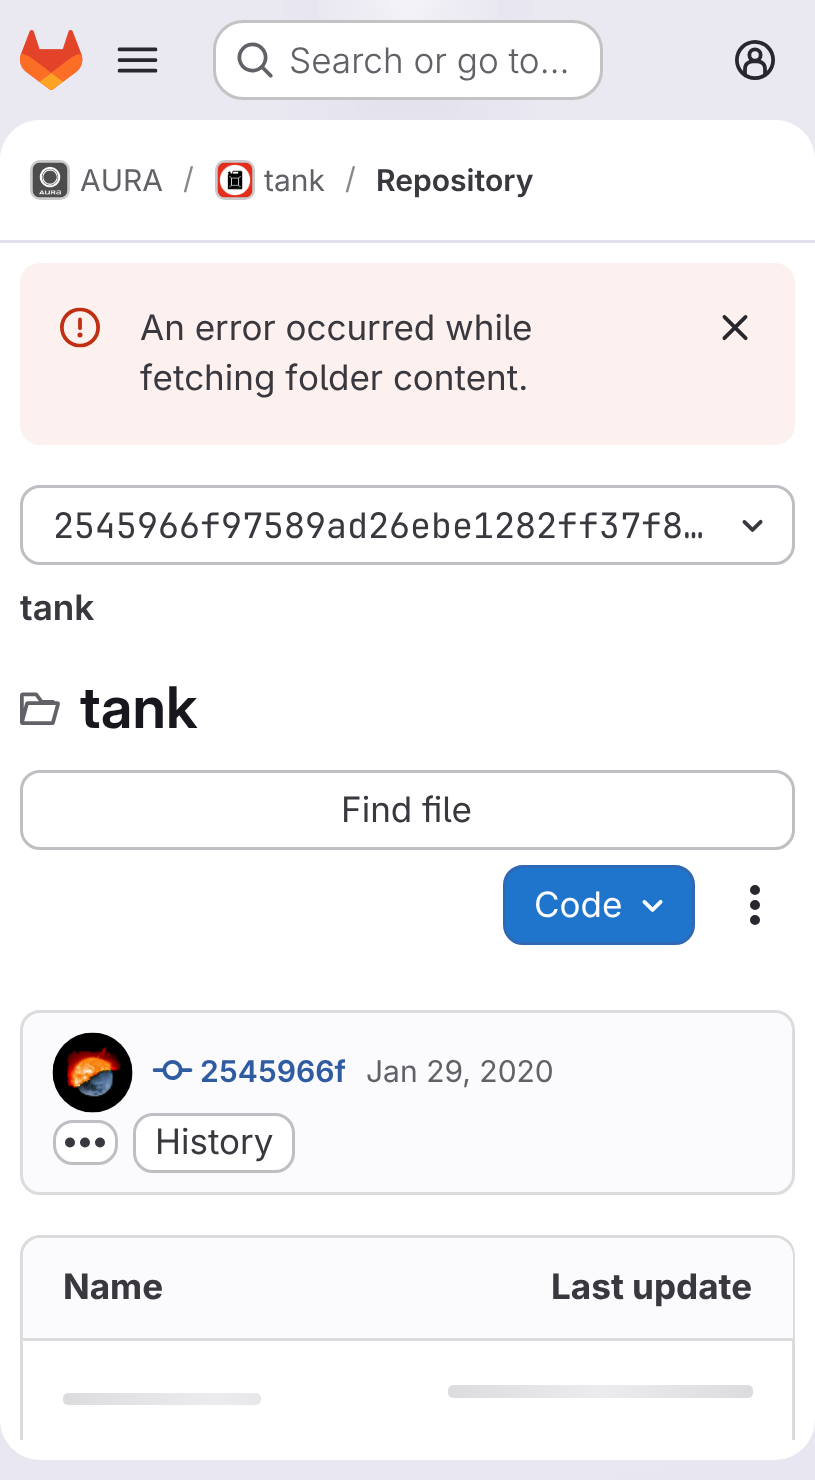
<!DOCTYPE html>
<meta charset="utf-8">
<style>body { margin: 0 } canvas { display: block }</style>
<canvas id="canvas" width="815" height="1480"></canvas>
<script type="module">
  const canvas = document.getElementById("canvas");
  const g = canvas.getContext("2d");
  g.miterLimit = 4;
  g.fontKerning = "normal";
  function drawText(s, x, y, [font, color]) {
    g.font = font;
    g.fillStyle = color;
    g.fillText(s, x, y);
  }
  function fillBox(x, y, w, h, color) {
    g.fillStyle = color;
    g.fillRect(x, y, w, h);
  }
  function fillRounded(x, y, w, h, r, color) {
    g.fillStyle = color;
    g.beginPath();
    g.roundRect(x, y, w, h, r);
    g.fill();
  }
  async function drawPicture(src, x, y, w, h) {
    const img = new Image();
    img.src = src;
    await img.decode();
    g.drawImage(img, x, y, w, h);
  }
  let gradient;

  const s1 = ["300 35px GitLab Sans", "#626168"];
  const s2 = ["30px GitLab Sans", "#626168"];
  const s3 = ["30px GitLab Sans", "#89888D"];
  const s4 = ["600 30px 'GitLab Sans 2'", "#3A383F"];
  const s5 = ["35px GitLab Sans", "#3A383F"];
  const s6 = ["35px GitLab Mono", "#3A383F"];
  const s7 = ["600 35px 'GitLab Sans 2'", "#3A383F"];
  const s8 = ["600 57.5px GitLab Sans", "#18171D"];
  const s9 = ["35px GitLab Sans", "#FFFFFF"];
  const s10 = ["600 30px 'GitLab Sans 2'", "#2F5CA0"];
  const s11 = ["bold 35px GitLab Sans", "#3A383F"];

  fillBox(0, 0, 815, 1480, "#FFFFFF");
  gradient = g.createLinearGradient(546, 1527, 269, -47);
  gradient.addColorStop(0, "#E8E6F0");
  gradient.addColorStop(0.7, "#EAE9F2");
  g.fillStyle = gradient;
  g.fillRect(0, 0, 815, 1480);
  gradient = g.createRadialGradient(408, 0, 0, 408, 0, 408);
  gradient.addColorStop(0, "#E4E2ED");
  gradient.addColorStop(0.43, "rgba(228, 226, 237, 0)");
  g.fillStyle = gradient;
  g.beginPath();
  g.rect(281, 0, 254, 120);
  g.save();
  g.clip();
  g.scale(1, 1480 / 408);
  g.fillRect(0, 0, 815, 408);
  g.restore();
  gradient = g.createRadialGradient(408, 0, 0, 408, 0, 408);
  gradient.addColorStop(0, "#E4E2EC");
  gradient.addColorStop(0.31, "rgba(228, 226, 236, 0)");
  g.fillStyle = gradient;
  g.beginPath();
  g.rect(355, 13, 106, 101);
  g.save();
  g.clip();
  g.scale(1, 1480 / 408);
  g.fillRect(0, 0, 815, 408);
  g.restore();
  gradient = g.createRadialGradient(408, 0, 0, 408, 0, 1535);
  gradient.addColorStop(0, "rgba(255, 255, 255, 0.6)");
  gradient.addColorStop(0.07, "rgba(255, 255, 255, 0)");
  g.fillStyle = gradient;
  g.fillRect(318, 0, 180, 91);
  await drawPicture("pic1.png", 20, 30, 63, 60);
  await drawPicture("pic2.png", 117, 47, 41, 26);
  fillRounded(213, 20, 390, 80, 30, "#FFFFFF");
  g.beginPath();
  g.roundRect(214.5, 21.5, 387, 77, 28.5);
  g.strokeStyle = "rgba(5, 5, 6, 0.24)";
  g.lineWidth = 3;
  g.stroke();
  await drawPicture("pic3.png", 237, 42, 36, 36);
  drawText("Search or go to…", 289, 73, s1);
  await drawPicture("pic4.png", 735, 40, 40, 40);
  fillRounded(0, 120, 815, 1340, 40, "#FFFFFF");
  g.beginPath();
  g.roundRect(0, 120, 815, 123, [40, 40, 0, 0]);
  g.fill();
  fillBox(0, 240, 815, 3, "#E1DFEC");
  g.beginPath();
  g.roundRect(31.5, 161.5, 37, 37, 8.5);
  g.strokeStyle = "#DCDCDE";
  g.stroke();
  await drawPicture("pic5.png", 32, 162, 36, 36);
  g.beginPath();
  g.roundRect(31.5, 161.5, 37, 37, 8.5);
  g.strokeStyle = "rgba(5, 5, 6, 0.08)";
  g.stroke();
  drawText("AURA", 80, 191, s2);
  drawText("/", 183, 189, s3);
  g.beginPath();
  g.roundRect(216.5, 161.5, 37, 37, 8.5);
  g.strokeStyle = "#DCDCDE";
  g.stroke();
  await drawPicture("pic6.png", 217, 162, 36, 36);
  g.beginPath();
  g.roundRect(216.5, 161.5, 37, 37, 8.5);
  g.strokeStyle = "rgba(5, 5, 6, 0.08)";
  g.stroke();
  drawText("tank", 264, 191, s2);
  drawText("/", 345, 189, s3);
  drawText("Repository", 376, 191, s4);
  fillRounded(20, 263, 775, 182, 20, "#FCF1EF");
  await drawPicture("pic7.png", 60, 307, 40, 41);
  drawText("An error occurred while", 140, 340, s5);
  drawText("fetching folder content.", 140, 390, s5);
  await drawPicture("pic8.png", 722, 315, 26, 26);
  g.beginPath();
  g.roundRect(21.5, 486.5, 772, 77, 18.5);
  g.strokeStyle = "#BFBFC3";
  g.stroke();
  drawText("2545966f97589ad26ebe1282ff37f8…", 53, 538, s6);
  await drawPicture("pic9.png", 742, 519, 21, 13);
  drawText("tank", 20, 620, s7);
  await drawPicture("pic10.png", 20, 692, 40, 33);
  drawText("tank", 80, 728, s8);
  g.beginPath();
  g.roundRect(21.5, 771.5, 772, 77, 18.5);
  g.stroke();
  drawText("Find file", 341, 822, s5);
  g.fillStyle = "#1F75CB";
  g.beginPath();
  g.roundRect(504.5, 866.5, 189, 77, 18.5);
  g.fill();
  g.strokeStyle = "#2F68B4";
  g.stroke();
  drawText("Code", 534, 917, s9);
  await drawPicture("pic11.png", 642, 899, 21, 13);
  await drawPicture("pic12.png", 750, 885, 10, 40);
  g.fillStyle = "#FBFAFD";
  g.beginPath();
  g.roundRect(21.5, 1011.5, 772, 182, 18.5);
  g.fill();
  g.strokeStyle = "#DCDCDE";
  g.stroke();
  await drawPicture("pic13.png", 52, 1032, 81, 81);
  g.beginPath();
  g.arc(93, 1073, 38.5, 0, Math.PI * 2);
  g.strokeStyle = "rgba(5, 5, 6, 0.08)";
  g.stroke();
  await drawPicture("pic14.png", 152, 1060, 41, 20);
  g.save();
  g.beginPath();
  g.rect(153, 1050, 192, 45);
  g.clip();
  drawText("2545966f", 200, 1082, s10);
  g.restore();
  drawText("Jan 29, 2020", 366, 1082, s2);
  g.fillStyle = "#FFFFFF";
  g.beginPath();
  g.roundRect(54.5, 1121.5, 62, 42, 18.5);
  g.fill();
  g.strokeStyle = "#BFBFC3";
  g.stroke();
  await drawPicture("pic15.png", 65, 1137, 40, 11);
  g.beginPath();
  g.roundRect(134.5, 1114.5, 159, 57, 18.5);
  g.fill();
  g.stroke();
  drawText("History", 155, 1154, s5);
  g.save();
  g.beginPath();
  g.rect(0, 243, 815, 1197);
  g.clip();
  g.fillStyle = "#DCDCDE";
  g.beginPath();
  g.moveTo(40, 1235);
  g.bezierCurveTo(29, 1235, 20, 1244, 20, 1255);
  g.lineTo(20, 1455);
  g.lineTo(23, 1456);
  g.lineTo(23, 1255);
  g.bezierCurveTo(23, 1246, 31, 1238, 40, 1238);
  g.lineTo(775, 1238);
  g.bezierCurveTo(784, 1238, 792, 1246, 792, 1255);
  g.lineTo(792, 1456);
  g.lineTo(795, 1455);
  g.lineTo(795, 1255);
  g.bezierCurveTo(795, 1244, 786, 1235, 775, 1235);
  g.closePath();
  g.fill();
  g.restore();
  g.fillStyle = "#FBFAFD";
  g.beginPath();
  g.roundRect(23, 1238, 385, 100, [18, 0, 0, 0]);
  g.fill();
  drawText("Name", 63, 1299, s11);
  g.fillStyle = "#FBFAFD";
  g.beginPath();
  g.roundRect(408, 1238, 385, 100, [0, 18, 0, 0]);
  g.fill();
  drawText("Last update", 551, 1299, s11);
  fillBox(23, 1338, 770, 3, "#DCDCDE");
  gradient = g.createLinearGradient(448, 1385, 753, 1385);
  gradient.addColorStop(0, "#DCDCDE");
  gradient.addColorStop(0.5, "#ECECEF");
  gradient.addColorStop(1, "#DCDCDE");
  g.fillStyle = gradient;
  g.beginPath();
  g.roundRect(448, 1385, 305, 13, 5);
  g.fill();
  gradient = g.createLinearGradient(63, 1393, 367, 1393);
  gradient.addColorStop(0, "#DCDCDE");
  gradient.addColorStop(0.5, "#ECECEF");
  gradient.addColorStop(1, "#DCDCDE");
  g.fillStyle = gradient;
  g.beginPath();
  g.roundRect(63, 1393, 198, 12, 5);
  g.fill();
</script>
